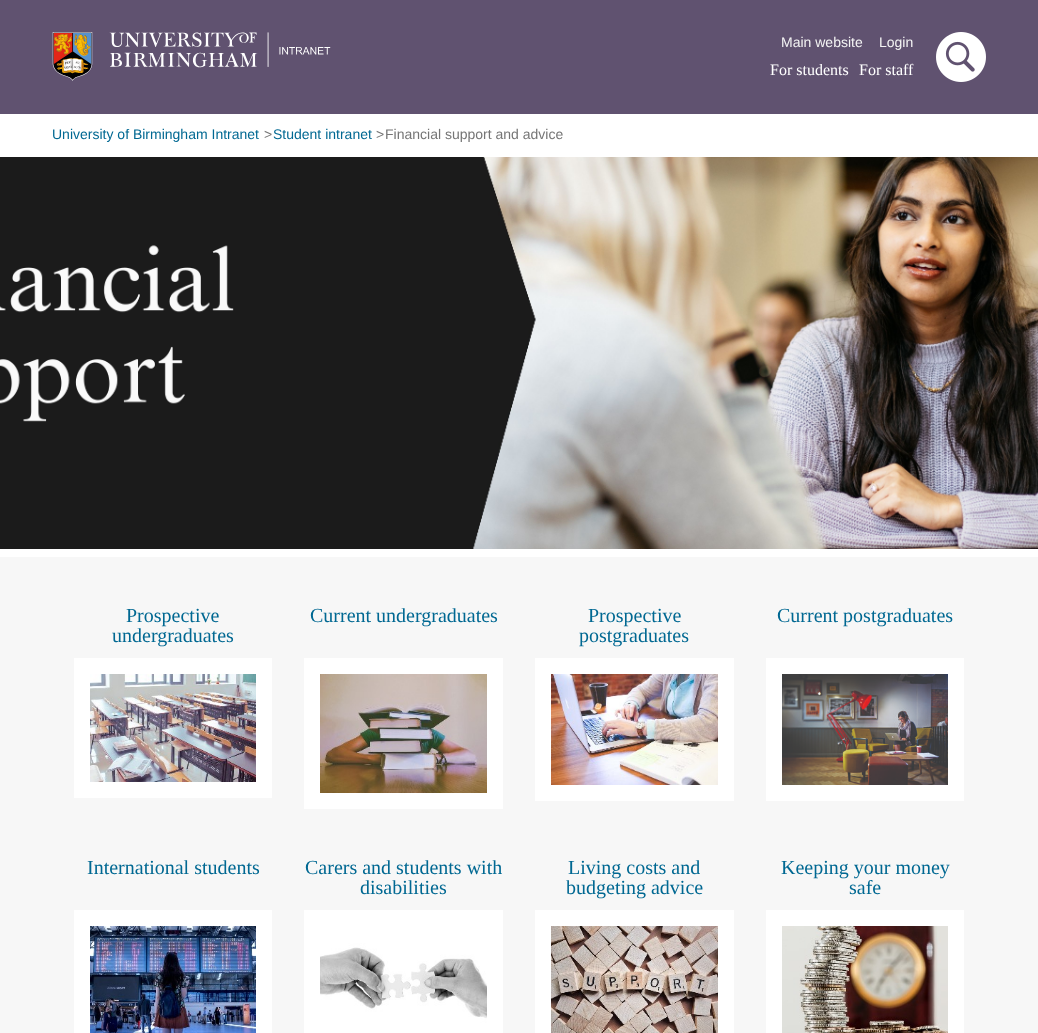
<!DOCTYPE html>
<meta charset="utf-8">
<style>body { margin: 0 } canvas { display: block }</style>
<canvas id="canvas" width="1038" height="1033"></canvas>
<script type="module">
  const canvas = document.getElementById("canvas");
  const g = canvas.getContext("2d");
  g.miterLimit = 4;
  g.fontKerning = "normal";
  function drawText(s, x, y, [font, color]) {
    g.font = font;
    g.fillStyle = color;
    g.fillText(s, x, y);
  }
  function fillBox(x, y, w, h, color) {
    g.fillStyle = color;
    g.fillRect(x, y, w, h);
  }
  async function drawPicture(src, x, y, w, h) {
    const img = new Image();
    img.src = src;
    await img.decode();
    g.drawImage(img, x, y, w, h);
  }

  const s1 = ["14px Liberation Sans", "#F4F4F4"];
  const s2 = ["16px Liberation Serif", "#FFFFFF"];
  const s3 = ["14px Liberation Sans", "#006892"];
  const s4 = ["14px Liberation Sans", "#757575"];
  const s5 = ["20px Liberation Serif", "#006892"];

  fillBox(0, 0, 1038, 1033, "#FFFFFF");
  fillBox(0, 0, 1038, 114, "#605270");
  await drawPicture("pic1.png", 52, 32, 279, 49);
  drawText("Main website", 781, 47, s1);
  drawText("Login", 879, 47, s1);
  await drawPicture("pic2.png", 936, 32, 50, 50);
  drawText("For students", 770, 75, s2);
  drawText("For staff", 859, 75, s2);
  drawText("University of Birmingham Intranet", 52, 139, s3);
  drawText(">", 264, 139, s4);
  drawText("Student intranet", 273, 139, s3);
  drawText(">", 376, 139, s4);
  drawText("Financial support and advice", 385, 139, s4);
  await drawPicture("pic3.png", 0, 157, 1038, 392);
  fillBox(0, 557, 1038, 476, "#F7F7F7");
  drawText("Prospective", 126, 622, s5);
  drawText("undergraduates", 112, 642, s5);
  g.strokeStyle = "#FFFFFF";
  g.lineWidth = 16;
  g.strokeRect(82, 666, 182, 124);
  await drawPicture("pic4.png", 90, 674, 166, 108);
  drawText("Current undergraduates", 310, 622, s5);
  g.strokeRect(312, 666, 183, 135);
  await drawPicture("pic5.png", 320, 674, 167, 119);
  drawText("Prospective", 588, 622, s5);
  drawText("postgraduates", 579, 642, s5);
  g.strokeRect(543, 666, 183, 127);
  await drawPicture("pic6.png", 551, 674, 167, 111);
  drawText("Current postgraduates", 777, 622, s5);
  g.strokeRect(774, 666, 182, 127);
  await drawPicture("pic7.png", 782, 674, 166, 111);
  drawText("International students", 87, 874, s5);
  g.strokeRect(82, 918, 182, 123);
  await drawPicture("pic8.png", 90, 926, 166, 107);
  drawText("Carers and students with", 305, 874, s5);
  drawText("disabilities", 360, 894, s5);
  g.strokeRect(312, 918, 183, 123);
  await drawPicture("pic9.png", 320, 926, 167, 107);
  drawText("Living costs and", 568, 874, s5);
  drawText("budgeting advice", 566, 894, s5);
  g.strokeRect(543, 918, 183, 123);
  await drawPicture("pic10.png", 551, 926, 167, 107);
  drawText("Keeping your money", 781, 874, s5);
  drawText("safe", 849, 894, s5);
  g.strokeRect(774, 918, 182, 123);
  await drawPicture("pic11.png", 782, 926, 166, 107);
</script>
